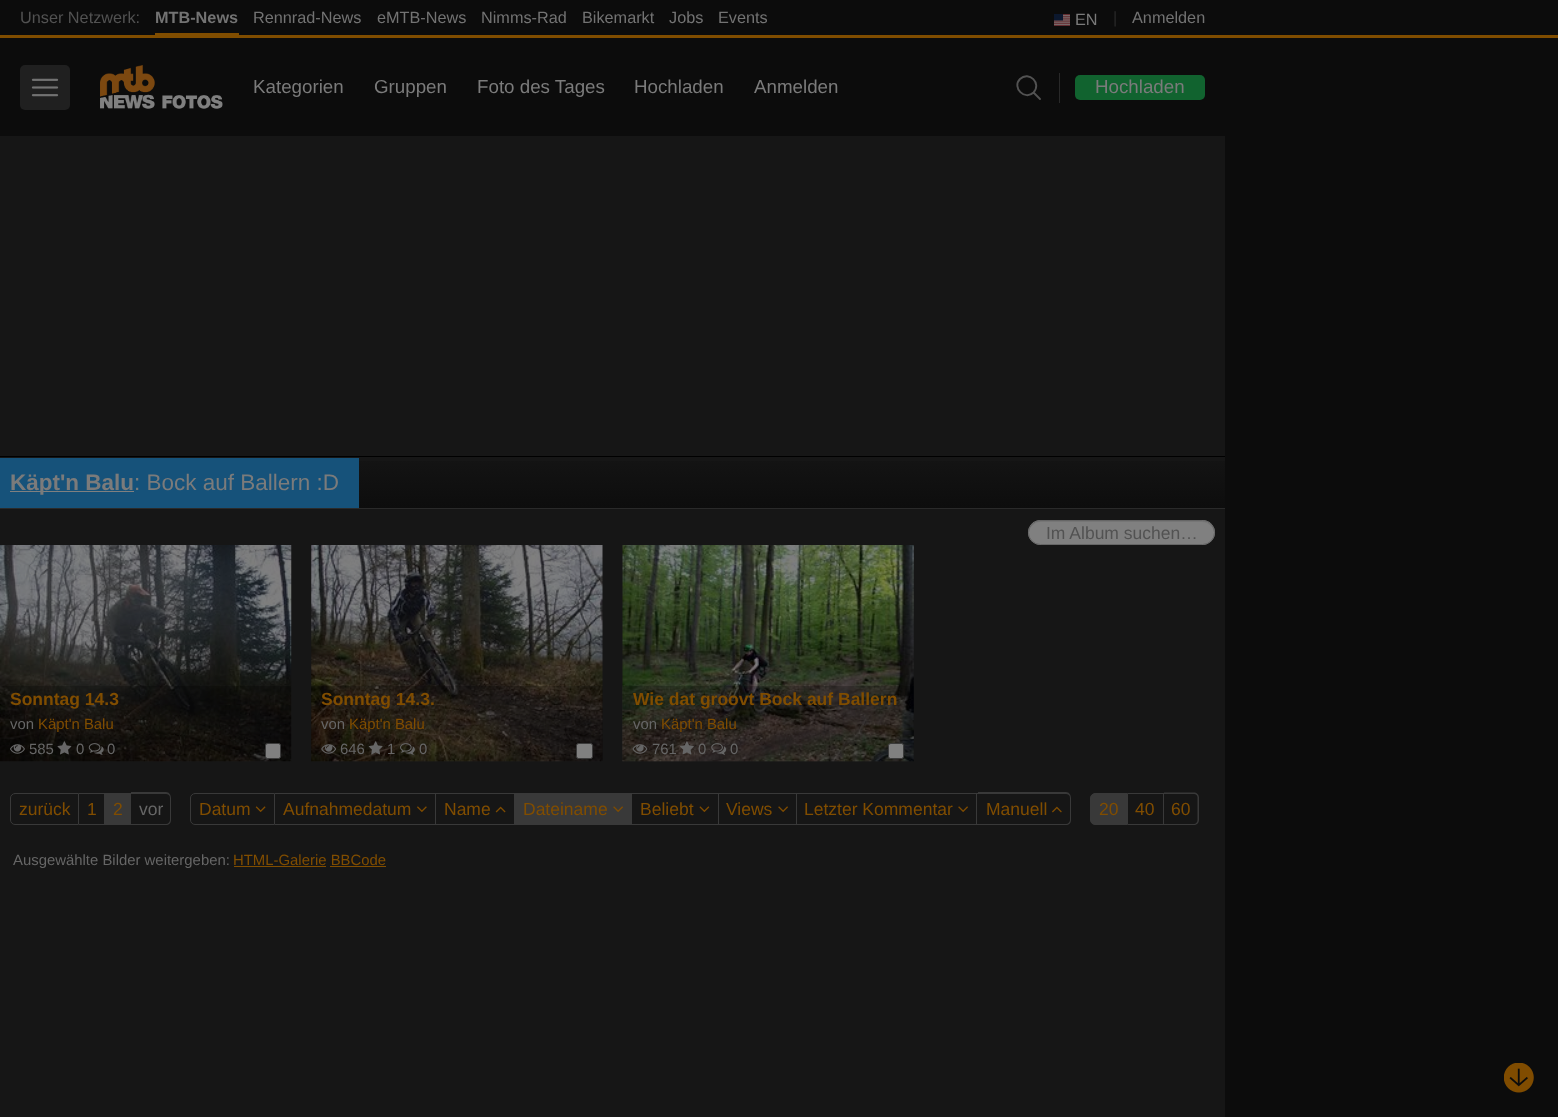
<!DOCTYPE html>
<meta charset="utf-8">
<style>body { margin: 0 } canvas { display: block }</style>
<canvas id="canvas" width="1558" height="1117"></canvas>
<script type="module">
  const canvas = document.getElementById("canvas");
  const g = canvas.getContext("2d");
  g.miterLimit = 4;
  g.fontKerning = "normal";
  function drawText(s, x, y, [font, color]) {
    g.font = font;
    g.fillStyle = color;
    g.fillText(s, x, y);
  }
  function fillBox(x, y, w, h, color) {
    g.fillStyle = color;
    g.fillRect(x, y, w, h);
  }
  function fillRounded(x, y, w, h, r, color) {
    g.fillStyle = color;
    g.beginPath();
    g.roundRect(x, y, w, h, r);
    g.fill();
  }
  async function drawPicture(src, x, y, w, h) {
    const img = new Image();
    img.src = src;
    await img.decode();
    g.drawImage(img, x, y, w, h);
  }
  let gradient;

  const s1 = ["16.25px Liberation Sans", "#525252"];
  const s2 = ["bold 16.25px Liberation Sans", "#737373"];
  const s3 = ["16.25px Liberation Sans", "#737373"];
  const s4 = ["16.25px Liberation Sans", "#7B7B7B"];
  const s5 = ["16.25px Liberation Sans", "#292929"];
  const s6 = ["18.75px Liberation Sans", "#7B7B7B"];
  const s7 = ["bold 22.5px Liberation Sans", "#7B7B7B"];
  const s8 = ["22.5px Liberation Sans", "#7B7B7B"];
  const s9 = ["17.5px Liberation Sans", "#525252"];
  const s10 = ["bold 17.5px Liberation Sans", "#804D00"];
  const s11 = ["14.9px Liberation Sans", "#666666"];
  const s12 = ["14.9px Liberation Sans", "#804D00"];
  const s13 = ["17.5px Liberation Sans", "#804D00"];
  const s14 = ["17.5px Liberation Sans", "#666666"];

  fillBox(0, 0, 1558, 1117, "#0C0C0C");
  fillBox(0, 35, 1558, 3, "#804D00");
  drawText("Unser Netzwerk:", 20, 23, s1);
  fillBox(155, 33, 84, 2, "#804D00");
  drawText("MTB-News", 155, 23, s2);
  drawText("Rennrad-News", 253, 23, s3);
  drawText("eMTB-News", 377, 23, s3);
  drawText("Nimms-Rad", 481, 23, s3);
  drawText("Bikemarkt", 582, 23, s3);
  drawText("Jobs", 669, 23, s3);
  drawText("Events", 718, 23, s3);
  await drawPicture("pic1.png", 1054, 14, 16, 12);
  drawText("EN", 1075, 25, s4);
  drawText("|", 1113, 23, s5);
  drawText("Anmelden", 1132, 23, s3);
  fillRounded(20, 65, 50, 45, 5, "#202020");
  await drawPicture("pic2.png", 31, 78, 28, 19);
  await drawPicture("pic3.png", 100, 65, 123, 44);
  drawText("Kategorien", 253, 93, s6);
  drawText("Gruppen", 374, 93, s6);
  drawText("Foto des Tages", 477, 93, s6);
  drawText("Hochladen", 634, 93, s6);
  drawText("Anmelden", 754, 93, s6);
  fillBox(1059, 73, 1, 30, "#292929");
  g.beginPath();
  g.moveTo(1040, 99);
  g.lineTo(1033.5, 92.5);
  g.moveTo(1033.5, 92.5);
  g.bezierCurveTo(1042, 83.5, 1029, 70.5, 1020, 79);
  g.bezierCurveTo(1011.5, 87.5, 1025, 101, 1033.5, 92.5);
  g.closePath();
  g.strokeStyle = "#525252";
  g.lineWidth = 1.9;
  g.lineCap = "round";
  g.lineJoin = "round";
  g.stroke();
  fillRounded(1075, 75, 130, 25, 5, "#11632F");
  drawText("Hochladen", 1095, 93, s6);
  fillBox(0, 136, 1225, 981, "#161616");
  gradient = g.createLinearGradient(613, 457, 613, 508);
  gradient.addColorStop(0, "#141414");
  gradient.addColorStop(1, "#0D0D0D");
  g.fillStyle = gradient;
  g.fillRect(359, 461, 866, 47);
  fillBox(0, 456, 1225, 1, "#000000");
  fillBox(0, 508, 1225, 1, "#2A2A2A");
  fillBox(0, 458, 359, 50, "#16527A");
  fillBox(10, 491, 124, 1, "#808080");
  drawText("Käpt'n Balu", 10, 490, s7);
  drawText(": Bock auf Ballern :D", 134, 490, s8);
  fillRounded(1028, 520, 187, 25, 12.5, "#808080");
  g.fillStyle = "#767676";
  g.beginPath();
  g.moveTo(1040, 522);
  g.lineTo(1202, 522);
  g.bezierCurveTo(1209, 522, 1214, 528, 1214, 533);
  g.bezierCurveTo(1215, 515, 1182, 521, 1176, 521);
  g.lineTo(1068, 521);
  g.bezierCurveTo(1061, 521, 1028, 515, 1029, 533);
  g.bezierCurveTo(1029, 528, 1034, 522, 1040, 522);
  g.closePath();
  g.fill();
  g.beginPath();
  g.roundRect(1028.5, 520.5, 186, 24, 12);
  g.strokeStyle = "#666666";
  g.lineWidth = 1;
  g.lineJoin = "miter";
  g.stroke();
  drawText("Im Album suchen…", 1046, 539, s9);
  await drawPicture("pic4.png", 0, 545, 292, 217);
  fillBox(0, 686, 291, 75, "rgba(0, 0, 0, 0.2)");
  drawText("Sonntag 14.3", 10, 705, s10);
  drawText("von", 10, 729, s11);
  drawText("Käpt'n Balu", 38, 729, s12);
  await drawPicture("pic5.png", 10, 744, 15, 10);
  drawText("585", 29, 754, s11);
  await drawPicture("pic6.png", 57, 741, 15, 14);
  drawText("0", 76, 754, s11);
  await drawPicture("pic7.png", 88, 743, 16, 12);
  drawText("0", 107, 754, s11);
  g.fillStyle = "#808080";
  g.beginPath();
  g.roundRect(265.5, 743.5, 15, 15, 2);
  g.fill();
  g.strokeStyle = "#3B3B3B";
  g.stroke();
  await drawPicture("pic8.png", 311, 545, 292, 217);
  fillBox(311, 686, 292, 75, "rgba(0, 0, 0, 0.2)");
  drawText("Sonntag 14.3.", 321, 705, s10);
  drawText("von", 321, 729, s11);
  drawText("Käpt'n Balu", 349, 729, s12);
  await drawPicture("pic9.png", 321, 744, 16, 10);
  drawText("646", 340, 754, s11);
  await drawPicture("pic10.png", 368, 741, 15, 14);
  drawText("1", 387, 754, s11);
  await drawPicture("pic11.png", 400, 743, 15, 12);
  drawText("0", 419, 754, s11);
  g.fillStyle = "#808080";
  g.beginPath();
  g.roundRect(576.5, 743.5, 16, 15, 2);
  g.fill();
  g.stroke();
  await drawPicture("pic12.png", 622, 545, 292, 217);
  fillBox(623, 686, 291, 75, "rgba(0, 0, 0, 0.2)");
  drawText("Wie dat groovt Bock auf Ballern", 633, 705, s10);
  drawText("von", 633, 729, s11);
  drawText("Käpt'n Balu", 661, 729, s12);
  await drawPicture("pic13.png", 632, 744, 16, 10);
  drawText("761", 652, 754, s11);
  await drawPicture("pic14.png", 680, 741, 14, 14);
  drawText("0", 698, 754, s11);
  await drawPicture("pic15.png", 711, 743, 16, 12);
  drawText("0", 730, 754, s11);
  g.fillStyle = "#808080";
  g.beginPath();
  g.roundRect(888.5, 743.5, 15, 15, 2);
  g.fill();
  g.stroke();
  g.beginPath();
  g.roundRect(10.5, 793.5, 68, 31, [4.5, 0, 0, 4.5]);
  g.strokeStyle = "#393939";
  g.stroke();
  drawText("zurück", 19, 815, s13);
  fillBox(79, 793, 52, 1, "#393939");
  fillBox(104, 793, 1, 32, "#393939");
  fillBox(79, 824, 26, 1, "#393939");
  drawText("1", 87, 815, s13);
  fillBox(105, 794, 25, 30, "#393939");
  fillBox(130, 793, 1, 32, "#393939");
  fillBox(105, 824, 26, 1, "#393939");
  drawText("2", 113, 815, s13);
  g.fillStyle = "#393939";
  g.beginPath();
  g.moveTo(131, 792);
  g.lineTo(166, 792);
  g.bezierCurveTo(169, 792, 171, 795, 171, 798);
  g.lineTo(171, 820);
  g.bezierCurveTo(171, 823, 169, 825, 166, 825);
  g.lineTo(131, 825);
  g.closePath();
  g.moveTo(131, 794);
  g.lineTo(166, 794);
  g.bezierCurveTo(168, 794, 170, 795, 170, 798);
  g.lineTo(170, 820);
  g.bezierCurveTo(170, 822, 168, 824, 166, 824);
  g.lineTo(131, 824);
  g.closePath();
  g.fill("evenodd");
  drawText("vor", 139, 815, s14);
  g.beginPath();
  g.roundRect(190.5, 793.5, 84, 31, [4.5, 0, 0, 4.5]);
  g.stroke();
  drawText("Datum", 199, 815, s13);
  await drawPicture("pic16.png", 255, 806, 11, 6);
  fillBox(275, 793, 703, 1, "#393939");
  fillBox(435, 793, 1, 32, "#393939");
  fillBox(275, 824, 161, 1, "#393939");
  drawText("Aufnahmedatum", 283, 815, s13);
  await drawPicture("pic17.png", 417, 806, 10, 6);
  fillBox(514, 793, 1, 32, "#393939");
  fillBox(436, 824, 79, 1, "#393939");
  drawText("Name", 444, 815, s13);
  await drawPicture("pic18.png", 495, 806, 11, 7);
  fillBox(515, 794, 116, 30, "#393939");
  fillBox(631, 793, 1, 32, "#393939");
  fillBox(515, 824, 118, 1, "#393939");
  drawText("Dateiname", 523, 815, s13);
  await drawPicture("pic19.png", 613, 806, 10, 6);
  fillBox(718, 793, 1, 32, "#393939");
  fillBox(633, 824, 86, 1, "#393939");
  drawText("Beliebt", 640, 815, s13);
  await drawPicture("pic20.png", 699, 806, 11, 6);
  fillBox(796, 793, 1, 32, "#393939");
  fillBox(719, 824, 79, 1, "#393939");
  drawText("Views", 726, 815, s13);
  await drawPicture("pic21.png", 778, 806, 10, 6);
  fillBox(976, 793, 1, 32, "#393939");
  fillBox(798, 824, 180, 1, "#393939");
  drawText("Letzter Kommentar", 804, 815, s13);
  await drawPicture("pic21.png", 958, 806, 10, 6);
  g.fillStyle = "#393939";
  g.beginPath();
  g.moveTo(978, 792);
  g.lineTo(1066, 792);
  g.bezierCurveTo(1069, 792, 1071, 795, 1071, 798);
  g.lineTo(1071, 820);
  g.bezierCurveTo(1071, 823, 1069, 825, 1066, 825);
  g.lineTo(978, 825);
  g.closePath();
  g.moveTo(978, 794);
  g.lineTo(1066, 794);
  g.bezierCurveTo(1068, 794, 1070, 795, 1070, 798);
  g.lineTo(1070, 820);
  g.bezierCurveTo(1070, 822, 1068, 824, 1066, 824);
  g.lineTo(978, 824);
  g.closePath();
  g.fill("evenodd");
  drawText("Manuell", 986, 815, s13);
  await drawPicture("pic22.png", 1052, 806, 10, 7);
  g.fillStyle = "#393939";
  g.beginPath();
  g.roundRect(1090.5, 793.5, 37, 31, [4.5, 0, 0, 4.5]);
  g.fill();
  g.stroke();
  drawText("20", 1099, 815, s13);
  fillBox(1128, 793, 36, 1, "#393939");
  fillBox(1163, 793, 1, 32, "#393939");
  fillBox(1128, 824, 36, 1, "#393939");
  drawText("40", 1135, 815, s13);
  g.fillStyle = "#393939";
  g.beginPath();
  g.moveTo(1164, 792.5);
  g.lineTo(1194, 792.5);
  g.bezierCurveTo(1196.5, 792.5, 1199, 794.5, 1199, 797.5);
  g.lineTo(1199, 820);
  g.bezierCurveTo(1199, 823, 1196.5, 825, 1194, 825);
  g.lineTo(1164, 825);
  g.closePath();
  g.moveTo(1164, 794);
  g.lineTo(1194, 794);
  g.bezierCurveTo(1196, 794, 1197.5, 795.5, 1197.5, 797.5);
  g.lineTo(1197.5, 820);
  g.bezierCurveTo(1197.5, 822, 1196, 824, 1194, 824);
  g.lineTo(1164, 824);
  g.closePath();
  g.fill("evenodd");
  drawText("60", 1171, 815, s13);
  drawText("Ausgewählte Bilder weitergeben:", 13, 865, s11);
  drawText("HTML-Galerie BBCode", 233, 865, s12);
  fillBox(234, 866, 92, 1, "#804D00");
  fillBox(330, 866, 56, 1, "#804D00");
  await drawPicture("pic23.png", 1504, 1063, 30, 30);
</script>
